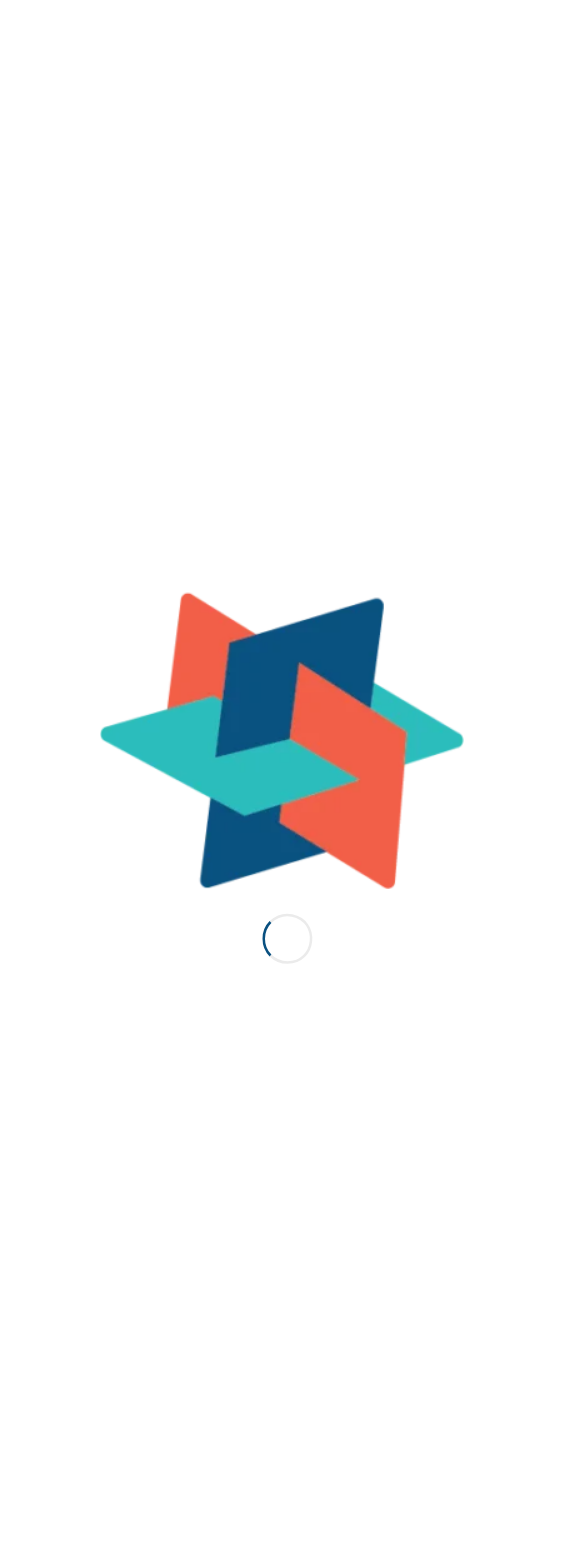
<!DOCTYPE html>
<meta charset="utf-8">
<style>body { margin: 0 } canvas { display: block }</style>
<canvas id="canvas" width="574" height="1556"></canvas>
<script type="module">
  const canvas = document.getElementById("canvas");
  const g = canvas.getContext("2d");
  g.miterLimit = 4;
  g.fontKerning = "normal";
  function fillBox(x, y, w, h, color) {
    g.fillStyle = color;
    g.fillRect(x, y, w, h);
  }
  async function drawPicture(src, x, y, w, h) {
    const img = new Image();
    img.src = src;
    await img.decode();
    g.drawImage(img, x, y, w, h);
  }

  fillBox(0, 0, 574, 1556, "#FFFFFF");
  await drawPicture("pic1.png", 100, 592, 364, 297);
  g.beginPath();
  g.moveTo(270.5, 922);
  g.bezierCurveTo(276.5, 916.5, 284.5, 914, 292, 915.5);
  g.bezierCurveTo(320, 921, 316, 962.5, 287.5, 962.5);
  g.bezierCurveTo(281, 962.5, 275, 960, 270.5, 955.5);
  g.strokeStyle = "#EBEBEB";
  g.lineWidth = 2.5;
  g.stroke();
  g.beginPath();
  g.moveTo(270.5, 955.5);
  g.bezierCurveTo(261.5, 946.5, 261.5, 931, 270.5, 922);
  g.strokeStyle = "#095080";
  g.stroke();
</script>
